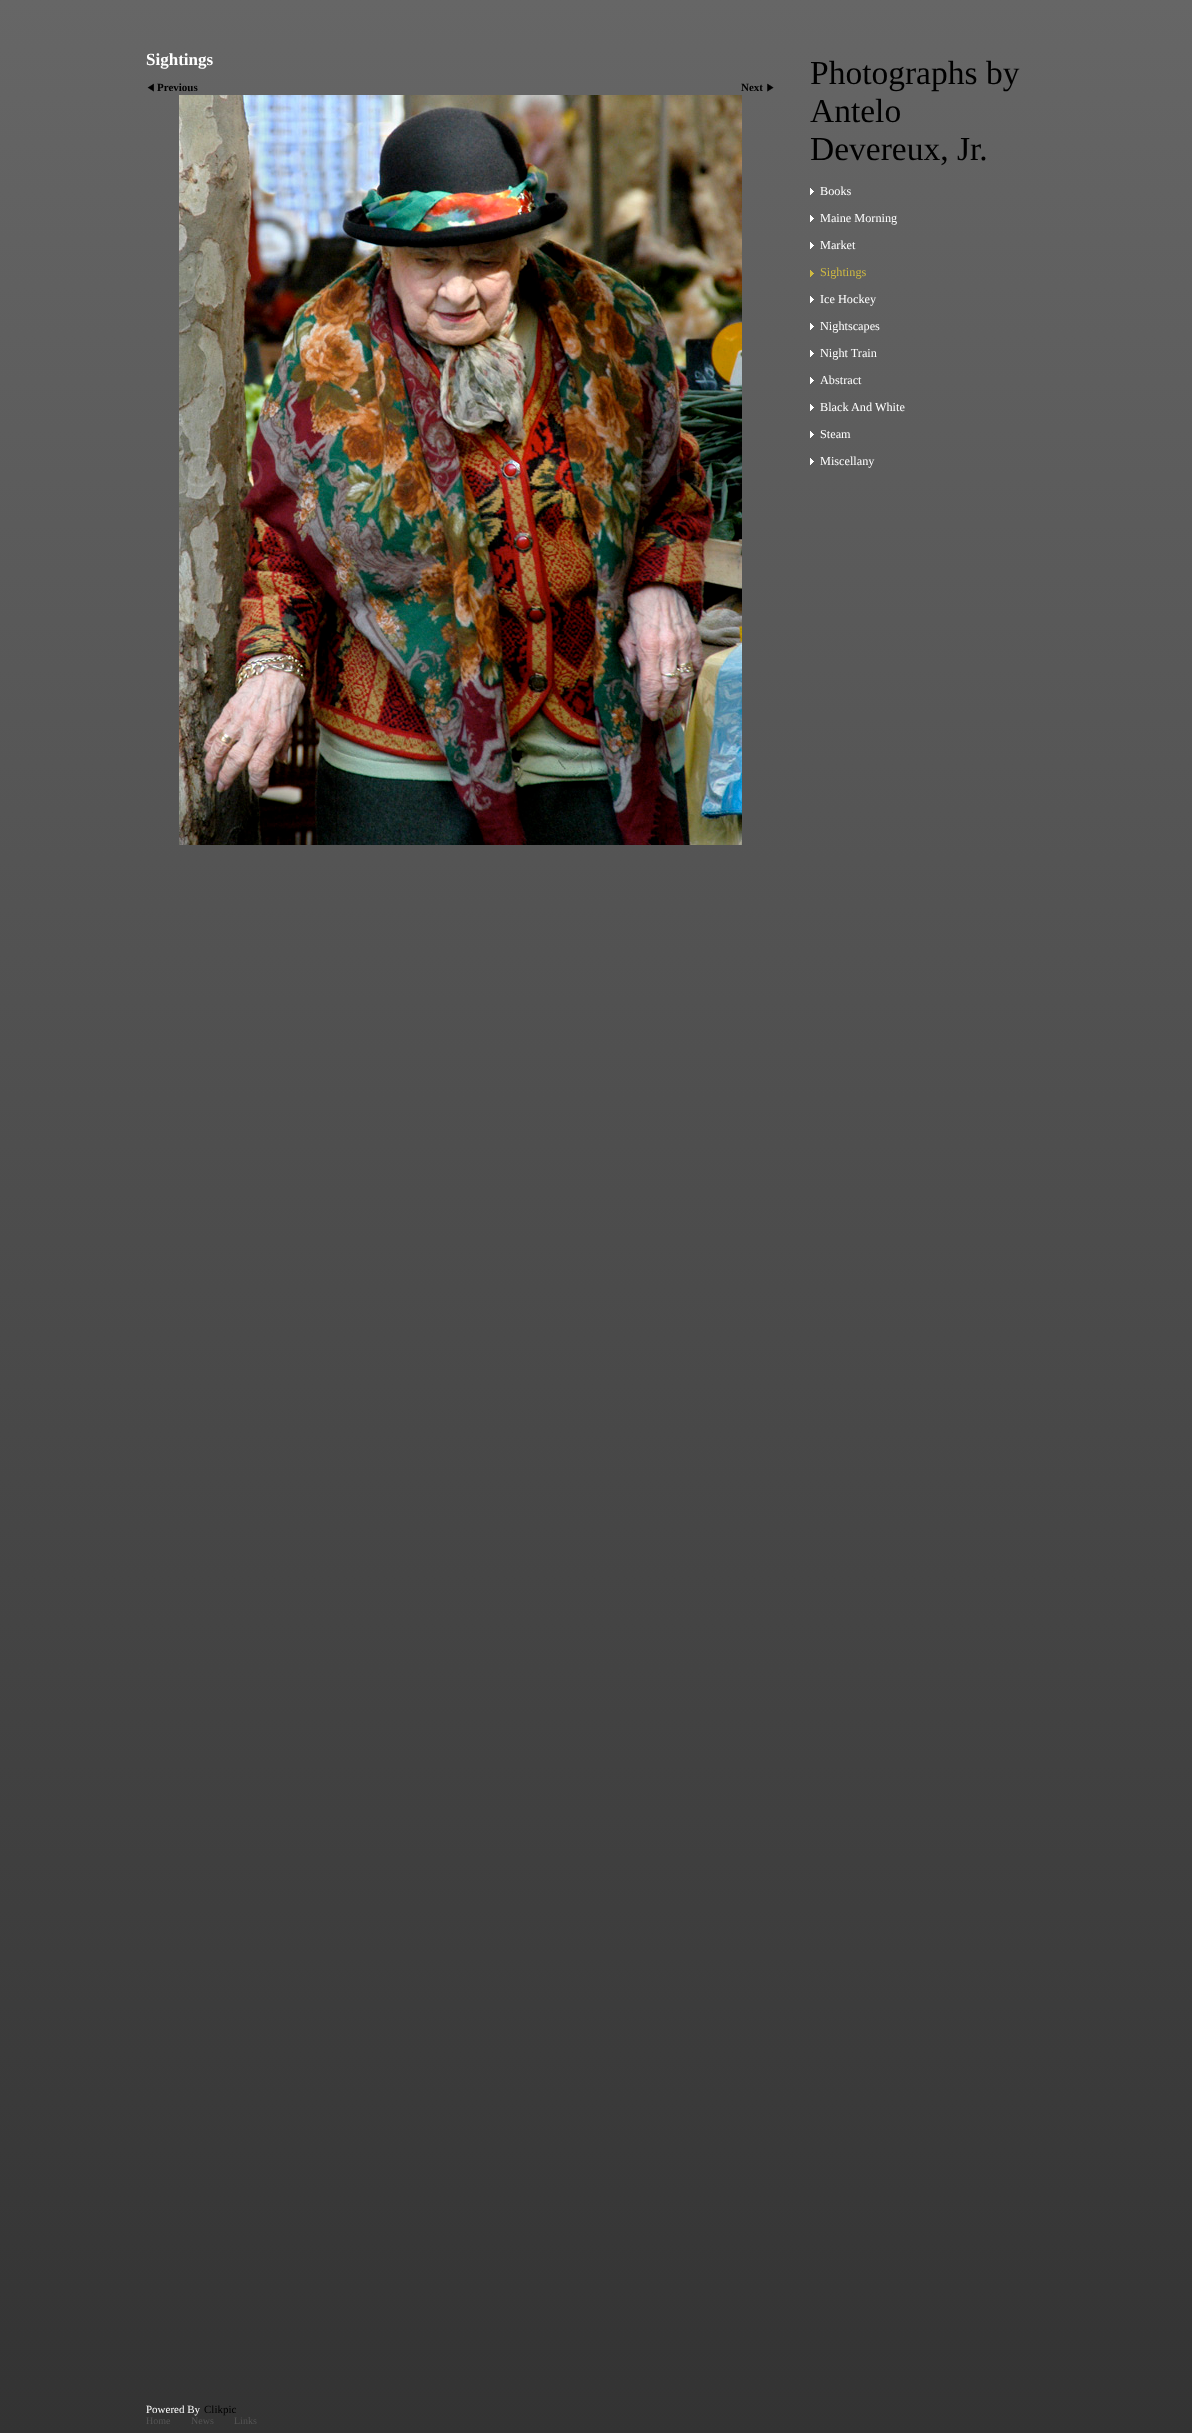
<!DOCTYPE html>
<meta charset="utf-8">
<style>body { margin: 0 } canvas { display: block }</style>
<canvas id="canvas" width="1192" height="2433"></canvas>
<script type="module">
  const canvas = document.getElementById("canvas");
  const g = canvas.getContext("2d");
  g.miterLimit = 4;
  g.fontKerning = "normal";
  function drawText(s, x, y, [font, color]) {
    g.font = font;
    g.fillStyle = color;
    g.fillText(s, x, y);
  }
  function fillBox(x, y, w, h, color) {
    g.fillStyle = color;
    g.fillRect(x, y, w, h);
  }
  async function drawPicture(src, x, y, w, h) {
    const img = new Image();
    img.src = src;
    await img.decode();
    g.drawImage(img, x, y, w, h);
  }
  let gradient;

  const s1 = ["bold 17px Liberation Serif", "#FFFFFF"];
  const s2 = ["bold 11px Liberation Serif", "#000000"];
  const s3 = ["33.5px Liberation Serif", "#000000"];
  const s4 = ["12.25px Liberation Serif", "#FFFFFF"];
  const s5 = ["12.25px Liberation Serif", "#CEB942"];
  const s6 = ["11px Liberation Serif", "#FFFFFF"];
  const s7 = ["11px Liberation Serif", "#000000"];
  const s8 = ["10px Liberation Serif", "#555555"];

  fillBox(0, 0, 1192, 2433, "#FFFFFF");
  gradient = g.createLinearGradient(596, 0, 596, 2433);
  gradient.addColorStop(0, "#666666");
  gradient.addColorStop(1, "#333333");
  g.fillStyle = gradient;
  g.fillRect(0, 0, 1192, 2433);
  drawText("Sightings", 146, 65, s1);
  await drawPicture("pic1.png", 147, 83, 7, 9);
  drawText("Previous", 157, 91, s2);
  drawText("Next", 741, 91, s2);
  await drawPicture("pic2.png", 767, 83, 7, 9);
  await drawPicture("pic3.png", 179, 95, 563, 750);
  drawText("Photographs by", 810, 84, s3);
  drawText("Antelo", 810, 122, s3);
  drawText("Devereux, Jr.", 810, 160, s3);
  await drawPicture("pic4.png", 810, 188, 4, 7);
  drawText("Books", 820, 195, s4);
  await drawPicture("pic5.png", 810, 215, 4, 7);
  drawText("Maine Morning", 820, 222, s4);
  await drawPicture("pic5.png", 810, 242, 4, 7);
  drawText("Market", 820, 249, s4);
  await drawPicture("pic6.png", 810, 270, 4, 7);
  drawText("Sightings", 820, 276, s5);
  await drawPicture("pic7.png", 810, 296, 4, 7);
  drawText("Ice Hockey", 820, 303, s4);
  await drawPicture("pic8.png", 810, 323, 4, 7);
  drawText("Nightscapes", 820, 330, s4);
  await drawPicture("pic8.png", 810, 350, 4, 7);
  drawText("Night Train", 820, 357, s4);
  await drawPicture("pic9.png", 810, 377, 4, 7);
  drawText("Abstract", 820, 384, s4);
  await drawPicture("pic10.png", 810, 404, 4, 7);
  drawText("Black And White", 820, 411, s4);
  await drawPicture("pic11.png", 810, 431, 4, 7);
  drawText("Steam", 820, 438, s4);
  await drawPicture("pic12.png", 810, 458, 4, 7);
  drawText("Miscellany", 820, 465, s4);
  drawText("Powered By", 146, 2413, s6);
  drawText("Clikpic", 204, 2413, s7);
  drawText("Home", 146, 2424, s8);
  drawText("News", 191, 2424, s8);
  drawText("Links", 234, 2424, s8);
</script>
